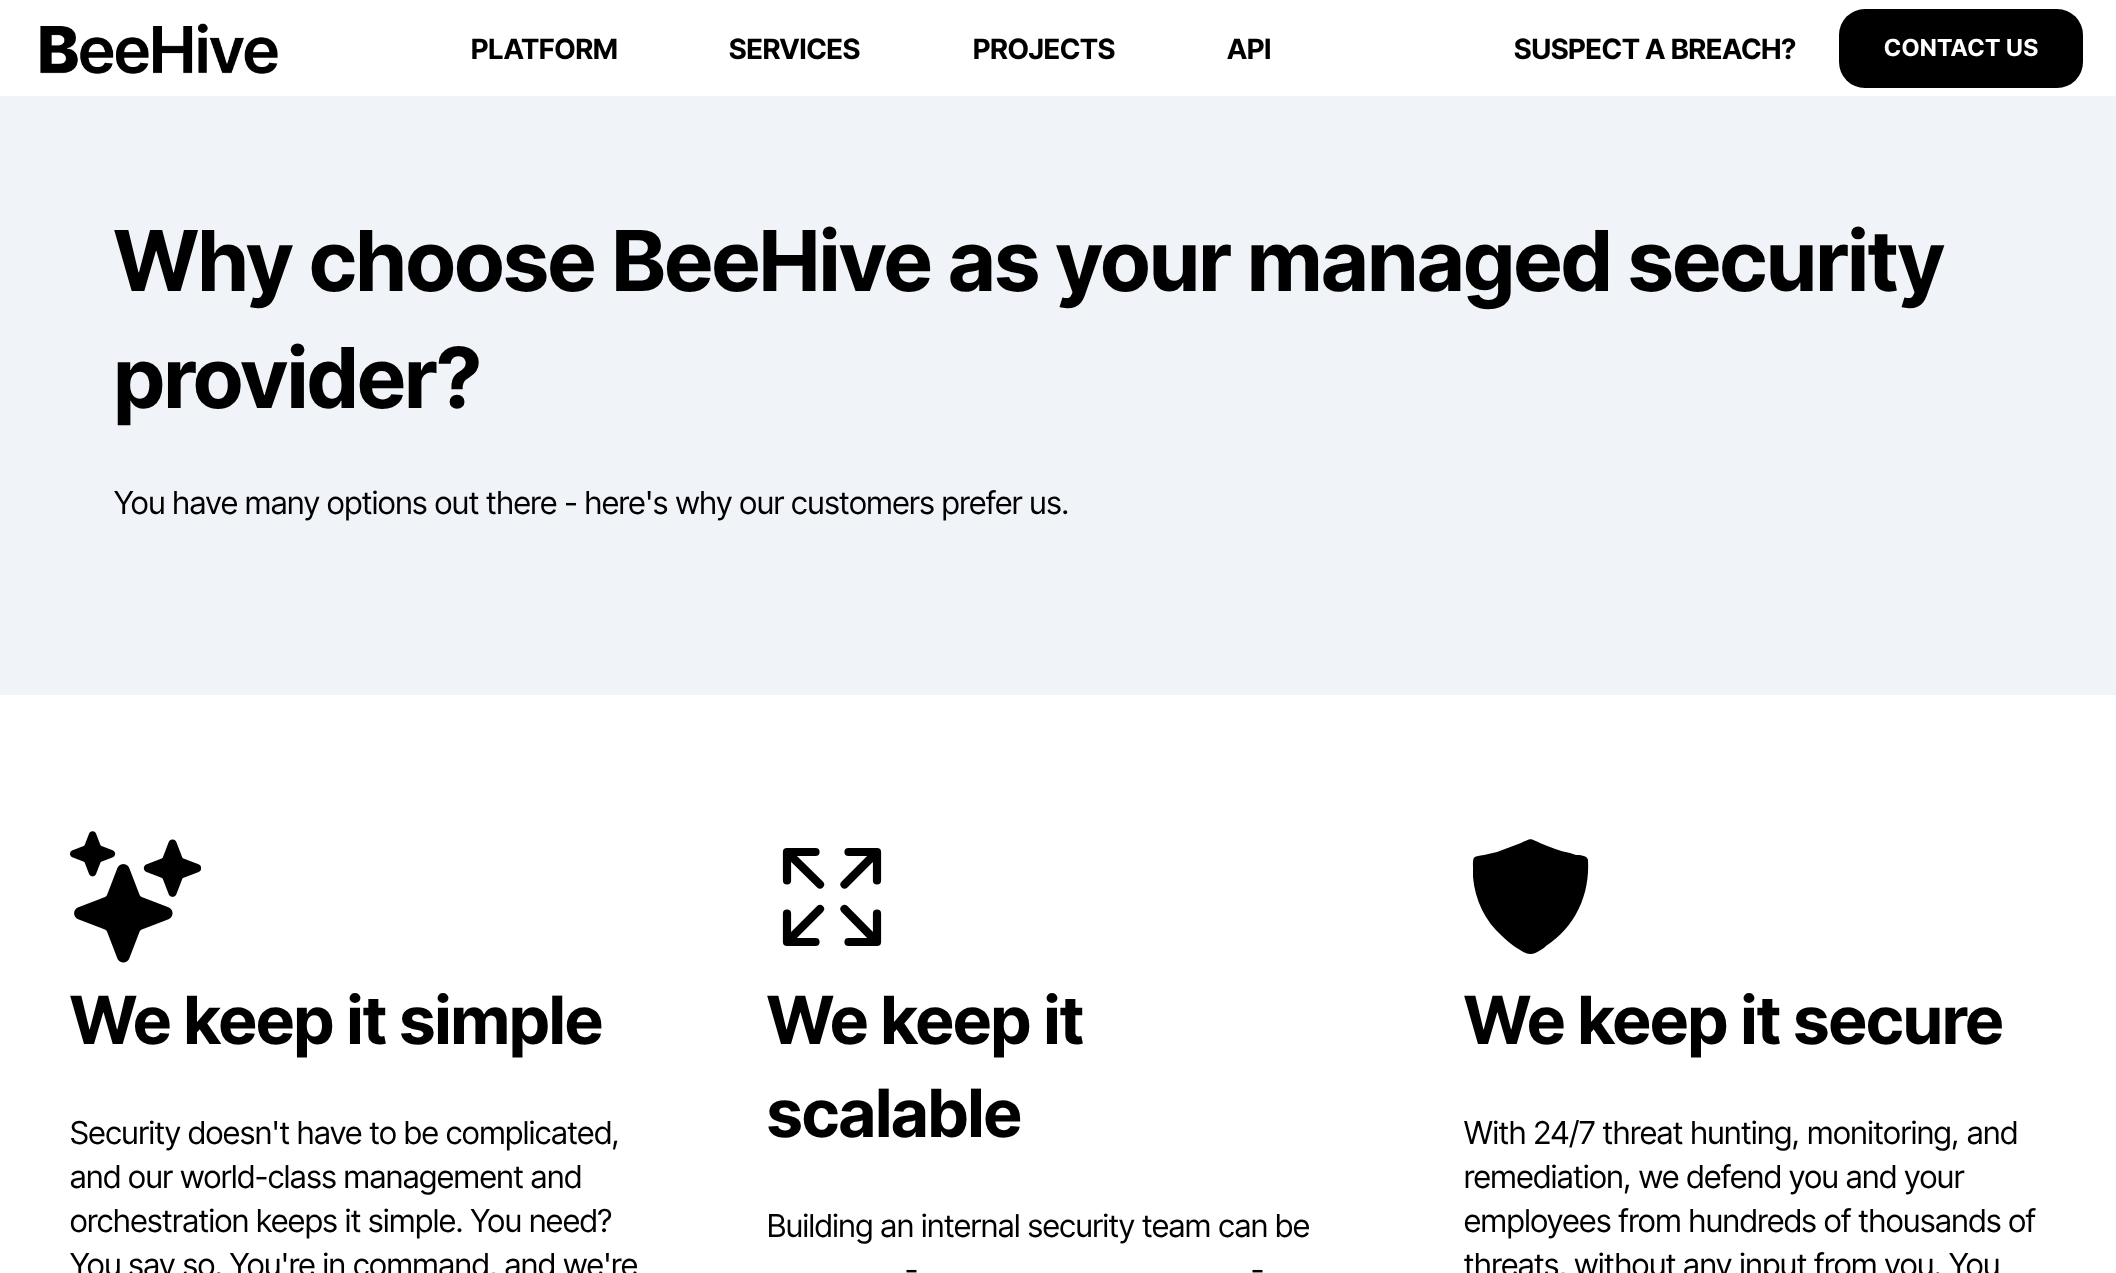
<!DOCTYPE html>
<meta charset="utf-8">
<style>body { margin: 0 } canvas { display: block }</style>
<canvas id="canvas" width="2116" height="1273"></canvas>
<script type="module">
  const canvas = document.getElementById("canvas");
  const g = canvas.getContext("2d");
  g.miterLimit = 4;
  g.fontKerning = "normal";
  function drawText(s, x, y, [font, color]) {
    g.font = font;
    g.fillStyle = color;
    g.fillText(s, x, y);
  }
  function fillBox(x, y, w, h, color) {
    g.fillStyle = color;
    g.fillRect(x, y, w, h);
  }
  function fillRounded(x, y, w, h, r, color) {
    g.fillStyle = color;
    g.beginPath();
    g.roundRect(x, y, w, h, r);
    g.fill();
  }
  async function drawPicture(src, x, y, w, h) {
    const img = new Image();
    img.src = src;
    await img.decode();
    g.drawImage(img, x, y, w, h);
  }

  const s1 = ["bold 28px Inter Tight", "#000000"];
  const s2 = ["bold 23.5px Inter Tight", "#FFFFFF"];
  const s3 = ["bold 84px Inter Tight", "#000000"];
  const s4 = ["31.5px Inter Tight", "#000000"];
  const s5 = ["bold 66.5px Inter Tight", "#000000"];

  fillBox(0, 0, 2116, 1273, "#FFFFFF");
  await drawPicture("pic1.png", 40, 23, 238, 51);
  drawText("PLATFORM", 471, 59, s1);
  drawText("SERVICES", 729, 59, s1);
  drawText("PROJECTS", 973, 59, s1);
  drawText("API", 1227, 59, s1);
  drawText("SUSPECT A BREACH?", 1514, 59, s1);
  fillRounded(1839, 9, 244, 79, 26, "#000000");
  g.letterSpacing = "0.75px";
  drawText("CONTACT US", 1884, 56, s2);
  fillBox(0, 96, 2116, 599, "#F0F4F9");
  g.letterSpacing = "0px";
  drawText("Why choose BeeHive as your managed security", 114, 291, s3);
  drawText("provider?", 114, 408, s3);
  drawText("You have many options out there - here's why our customers prefer us.", 114, 514, s4);
  await drawPicture("pic2.png", 70, 831, 131, 132);
  drawText("We keep it simple", 70, 1044, s5);
  drawText("Security doesn't have to be complicated,", 70, 1144, s4);
  drawText("and our world-class management and", 70, 1188, s4);
  drawText("orchestration keeps it simple. You need?", 70, 1232, s4);
  drawText("You say so. You're in command, and we're", 70, 1276, s4);
  g.beginPath();
  g.moveTo(787, 880.5);
  g.lineTo(787, 852);
  g.lineTo(815.5, 852);
  g.moveTo(789.5, 854.5);
  g.lineTo(820, 884.5);
  g.strokeStyle = "#000000";
  g.lineWidth = 8.2;
  g.lineCap = "round";
  g.lineJoin = "round";
  g.stroke();
  g.beginPath();
  g.moveTo(848.5, 852);
  g.lineTo(877, 852);
  g.lineTo(877, 880.5);
  g.moveTo(874.5, 854.5);
  g.lineTo(844.5, 884.5);
  g.stroke();
  g.beginPath();
  g.moveTo(815.5, 942);
  g.lineTo(787, 942);
  g.lineTo(787, 913.5);
  g.moveTo(789.5, 939.5);
  g.lineTo(820, 909);
  g.stroke();
  g.beginPath();
  g.moveTo(877, 913.5);
  g.lineTo(877, 942);
  g.lineTo(848.5, 942);
  g.moveTo(874.5, 939.5);
  g.lineTo(844.5, 909);
  g.stroke();
  drawText("We keep it", 767, 1044, s5);
  drawText("scalable", 767, 1137, s5);
  drawText("Building an internal security team can be", 767, 1237, s4);
  drawText("-", 905, 1281, s4);
  drawText("-", 1251, 1281, s4);
  g.beginPath();
  g.moveTo(1588, 860);
  g.bezierCurveTo(1587, 855, 1579, 855, 1576, 855);
  g.lineTo(1570, 853);
  g.bezierCurveTo(1559, 851, 1550, 847, 1540, 843);
  g.bezierCurveTo(1529, 838, 1532, 838, 1521, 843);
  g.bezierCurveTo(1513, 846, 1505, 849, 1497, 852);
  g.lineTo(1484, 855);
  g.bezierCurveTo(1474, 857, 1473, 855, 1473, 866);
  g.lineTo(1473, 877);
  g.bezierCurveTo(1475, 900, 1485, 921, 1502, 936);
  g.bezierCurveTo(1507, 941, 1523, 954, 1530, 954);
  g.bezierCurveTo(1534, 955, 1543, 949, 1546, 946);
  g.bezierCurveTo(1575, 927, 1590, 895, 1588, 860);
  g.closePath();
  g.fill();
  drawText("We keep it secure", 1464, 1044, s5);
  drawText("With 24/7 threat hunting, monitoring, and", 1464, 1144, s4);
  drawText("remediation, we defend you and your", 1464, 1188, s4);
  drawText("employees from hundreds of thousands of", 1464, 1232, s4);
  drawText("threats, without any input from you. You", 1464, 1276, s4);
</script>
